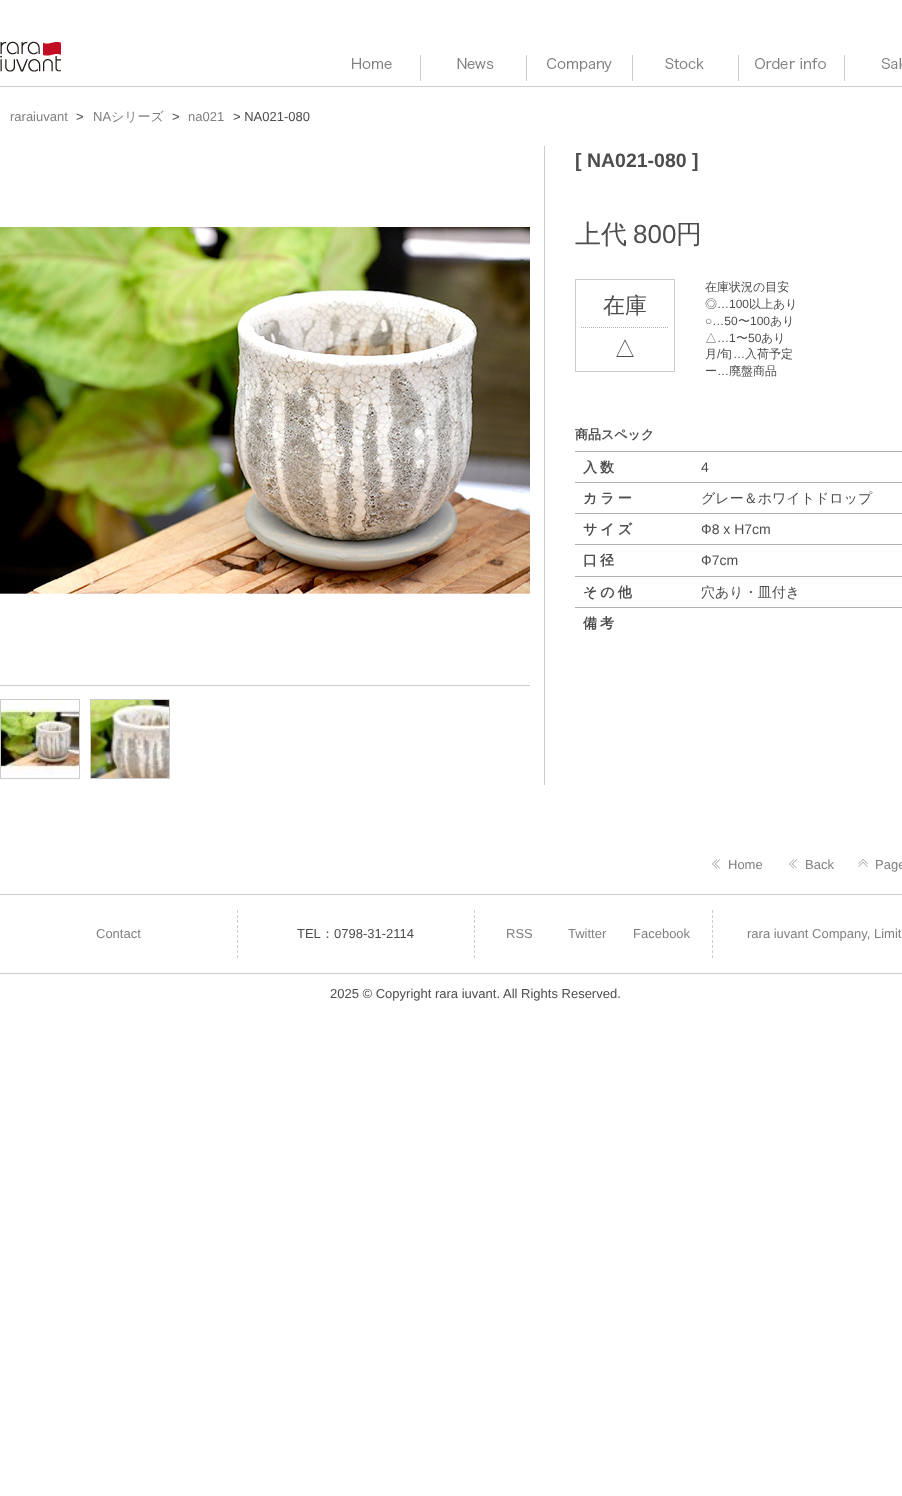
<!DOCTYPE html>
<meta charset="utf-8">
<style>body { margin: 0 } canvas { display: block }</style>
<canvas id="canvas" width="902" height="1496"></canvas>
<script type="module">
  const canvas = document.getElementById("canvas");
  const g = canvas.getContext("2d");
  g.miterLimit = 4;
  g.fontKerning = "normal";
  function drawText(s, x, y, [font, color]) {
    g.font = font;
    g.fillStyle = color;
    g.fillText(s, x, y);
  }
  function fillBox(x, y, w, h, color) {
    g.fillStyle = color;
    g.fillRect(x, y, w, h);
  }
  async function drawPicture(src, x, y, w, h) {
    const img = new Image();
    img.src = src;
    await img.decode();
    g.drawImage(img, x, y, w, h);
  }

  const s1 = ["13px Liberation Sans", "#808080"];
  const s2 = ["13px Liberation Sans", "#4D4D4D"];
  const s3 = ["500 13px WenQuanYi Zen Hei", "#808080"];
  const s4 = ["bold 19.5px Liberation Sans", "#4D4D4D"];
  const s5 = ["500 26px WenQuanYi Zen Hei", "#4D4D4D"];
  const s6 = ["26px Liberation Sans", "#4D4D4D"];
  const s7 = ["500 22px WenQuanYi Zen Hei", "#4D4D4D"];
  const s8 = ["500 12px WenQuanYi Zen Hei", "#4D4D4D"];
  const s9 = ["12px Liberation Sans", "#4D4D4D"];
  const s10 = ["bold 13px WenQuanYi Zen Hei", "#4D4D4D"];
  const s11 = ["bold 14px WenQuanYi Zen Hei", "#4D4D4D"];
  const s12 = ["14px Liberation Sans", "#4D4D4D"];
  const s13 = ["500 14px WenQuanYi Zen Hei", "#4D4D4D"];
  const s14 = ["500 13px WenQuanYi Zen Hei", "#4D4D4D"];

  fillBox(0, 0, 902, 1496, "#FFFFFF");
  fillBox(0, 86, 902, 1, "#CCCCCC");
  await drawPicture("pic1.png", 0, 40, 65, 33);
  fillBox(420, 55, 1, 26, "#CCCCCC");
  await drawPicture("pic2.png", 352, 58, 40, 11);
  fillBox(526, 55, 1, 26, "#CCCCCC");
  await drawPicture("pic3.png", 457, 58, 37, 11);
  fillBox(632, 55, 1, 26, "#CCCCCC");
  await drawPicture("pic4.png", 547, 58, 65, 14);
  fillBox(738, 55, 1, 26, "#CCCCCC");
  await drawPicture("pic5.png", 665, 58, 39, 11);
  fillBox(844, 55, 1, 26, "#CCCCCC");
  await drawPicture("pic6.png", 755, 58, 71, 11);
  await drawPicture("pic7.png", 881, 58, 21, 11);
  drawText("raraiuvant", 10, 121, s1);
  drawText(">", 76, 121, s2);
  drawText("NA", 93, 121, s1);
  drawText("シリーズ", 111, 121, s3);
  drawText(">", 172, 121, s2);
  drawText("na021", 188, 121, s1);
  drawText("> NA021-080", 233, 121, s2);
  fillBox(544, 146, 1, 639, "#CCCCCC");
  fillBox(0, 685, 530, 1, "#CCCCCC");
  await drawPicture("pic8.png", 0, 226, 530, 368);
  g.strokeStyle = "#CCCCCC";
  g.strokeRect(0.5, 699.5, 79, 79);
  await drawPicture("pic9.png", 1, 700, 78, 75);
  g.strokeRect(90.5, 699.5, 79, 79);
  await drawPicture("pic10.png", 91, 700, 78, 78);
  drawText("[ NA021-080 ]", 575, 167, s4);
  drawText("上代", 575, 243, s5);
  drawText("800", 633, 243, s6);
  drawText("円", 676, 243, s5);
  g.strokeRect(575.5, 279.5, 99, 92);
  drawText("在庫", 603, 313, s7);
  g.beginPath();
  g.moveTo(581, 327.5);
  g.lineTo(669, 327.5);
  g.strokeStyle = "#B2B2B2";
  g.setLineDash([1, 1]);
  g.stroke();
  drawText("△", 614, 356, s7);
  drawText("在庫状況の目安", 705, 291, s8);
  drawText("◎", 705, 308, s8);
  drawText("…100", 717, 308, s9);
  drawText("以上あり", 749, 308, s8);
  drawText("○…50", 705, 325, s9);
  drawText("〜", 738, 325, s8);
  drawText("100", 750, 325, s9);
  drawText("あり", 770, 325, s8);
  drawText("△", 705, 342, s8);
  drawText("…1", 717, 342, s9);
  drawText("〜", 736, 342, s8);
  drawText("50", 748, 342, s9);
  drawText("あり", 761, 342, s8);
  drawText("月", 705, 358, s8);
  drawText("/", 717, 358, s9);
  drawText("旬", 720, 358, s8);
  drawText("…", 733, 358, s9);
  drawText("入荷予定", 745, 358, s8);
  drawText("ー", 705, 375, s8);
  drawText("廃盤商品", 729, 375, s8);
  drawText("…", 717, 375, s9);
  drawText("商品スペック", 575, 439, s10);
  g.letterSpacing = "3px";
  drawText("入数", 583, 472, s11);
  fillBox(575, 451, 327, 1, "#B2B2B2");
  g.letterSpacing = "0px";
  drawText("4", 701, 472, s12);
  g.letterSpacing = "3px";
  drawText("カラー", 583, 503, s11);
  fillBox(575, 482, 327, 1, "#B2B2B2");
  g.letterSpacing = "0px";
  drawText("グレー＆ホワイトドロップ", 701, 503, s13);
  g.letterSpacing = "3px";
  drawText("サイズ", 583, 534, s11);
  fillBox(575, 513, 327, 1, "#B2B2B2");
  g.letterSpacing = "0px";
  drawText("Ф8 x H7cm", 701, 534, s12);
  g.letterSpacing = "3px";
  drawText("口径", 583, 565, s11);
  fillBox(575, 544, 327, 1, "#B2B2B2");
  g.letterSpacing = "0px";
  drawText("Ф7cm", 701, 565, s12);
  g.letterSpacing = "3px";
  drawText("その他", 583, 597, s11);
  fillBox(575, 576, 327, 1, "#B2B2B2");
  g.letterSpacing = "0px";
  drawText("穴あり・皿付き", 701, 597, s13);
  fillBox(575, 607, 327, 1, "#B2B2B2");
  g.letterSpacing = "3px";
  drawText("備考", 583, 628, s11);
  await drawPicture("pic11.png", 712, 859, 8, 10);
  g.letterSpacing = "0px";
  drawText("Home", 728, 869, s1);
  await drawPicture("pic11.png", 789, 859, 8, 10);
  drawText("Back", 805, 869, s1);
  await drawPicture("pic12.png", 858, 859, 10, 8);
  drawText("Page", 875, 869, s1);
  fillBox(0, 894, 902, 1, "#CCCCCC");
  fillBox(0, 973, 902, 1, "#CCCCCC");
  g.beginPath();
  g.moveTo(237.5, 910);
  g.lineTo(237.5, 958);
  g.strokeStyle = "#CCCCCC";
  g.setLineDash([3, 2]);
  g.stroke();
  drawText("Contact", 96, 938, s1);
  g.beginPath();
  g.moveTo(474.5, 910);
  g.lineTo(474.5, 958);
  g.stroke();
  drawText("TEL", 297, 938, s2);
  drawText("：", 321, 938, s14);
  drawText("0798-31-2114", 334, 938, s2);
  g.beginPath();
  g.moveTo(712.5, 910);
  g.lineTo(712.5, 958);
  g.stroke();
  drawText("RSS", 506, 938, s1);
  drawText("Twitter", 568, 938, s1);
  drawText("Facebook", 633, 938, s1);
  drawText("rara iuvant Company, Limit", 747, 938, s1);
  drawText("2025 © Copyright rara iuvant.", 330, 998, s2);
  drawText("All Rights Reserved.", 503, 998, s2);
</script>
